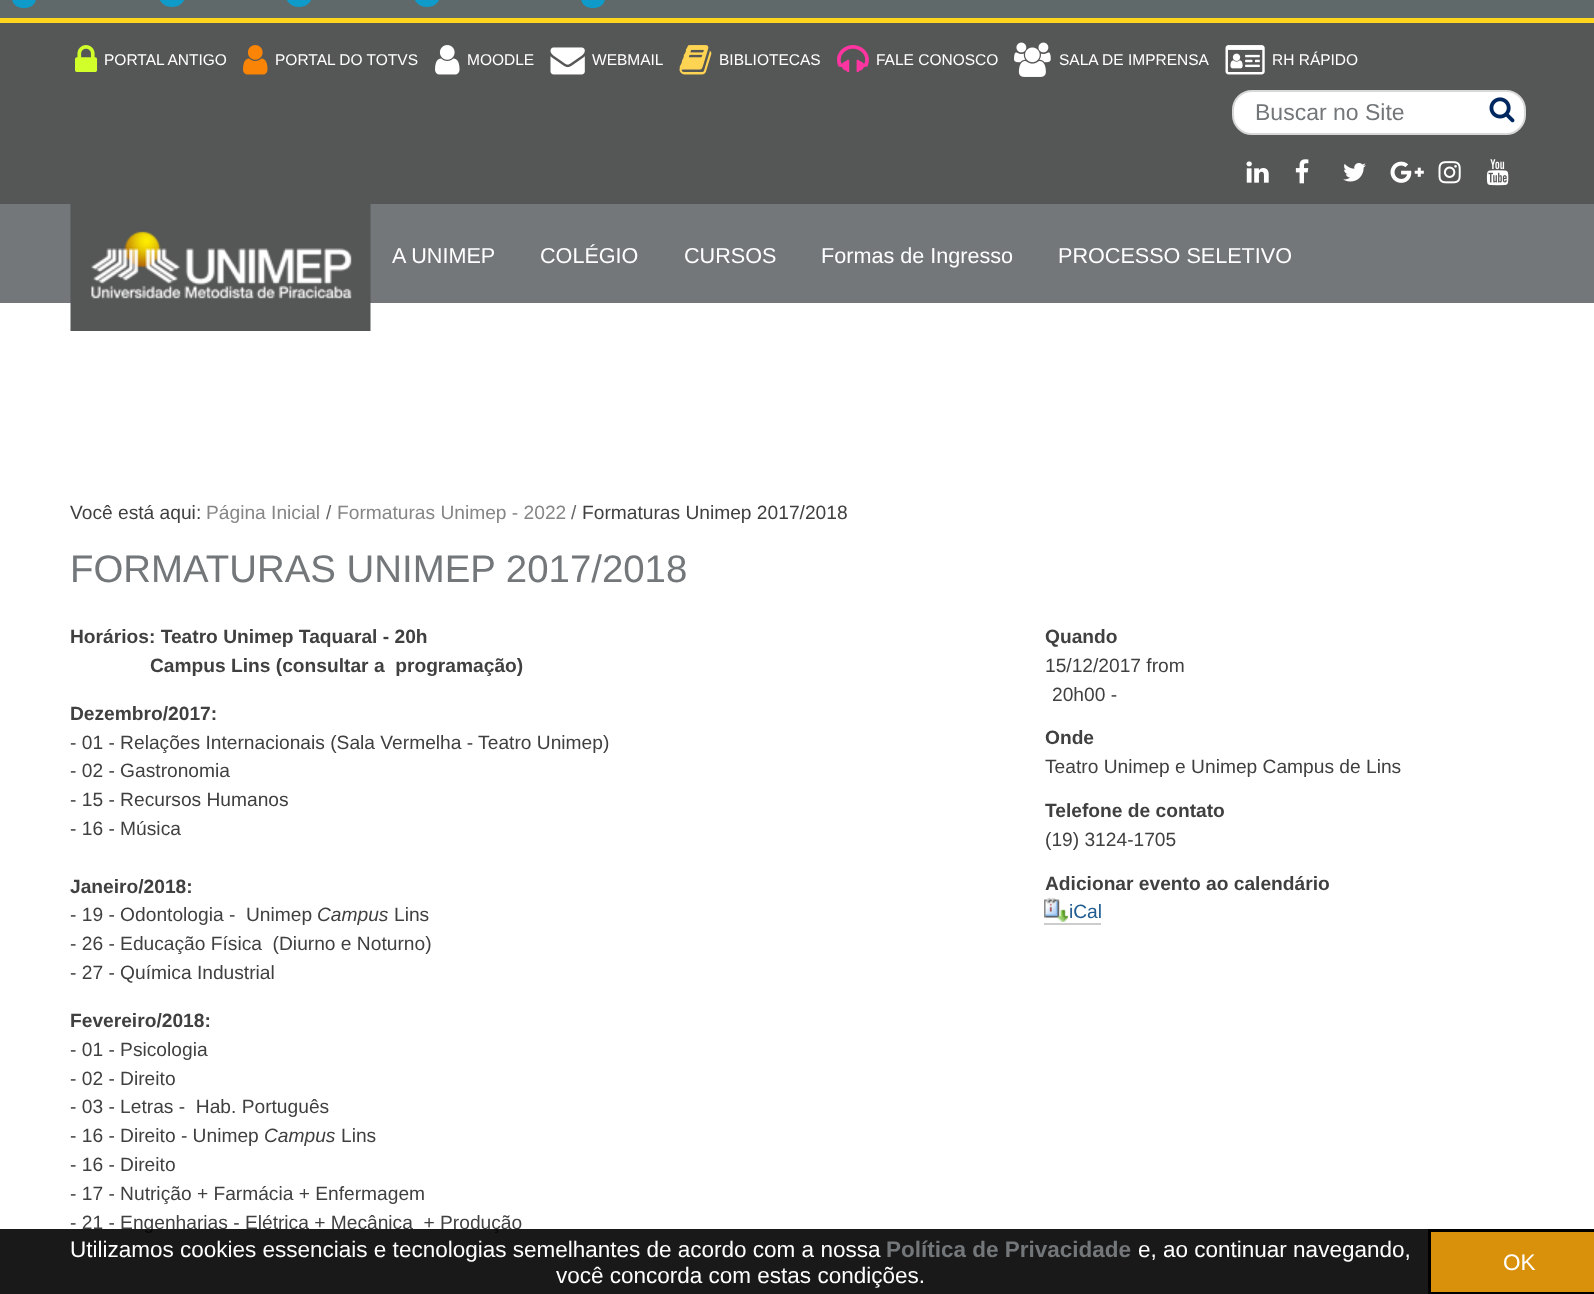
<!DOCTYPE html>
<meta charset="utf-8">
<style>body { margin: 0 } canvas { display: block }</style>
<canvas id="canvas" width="1594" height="1294"></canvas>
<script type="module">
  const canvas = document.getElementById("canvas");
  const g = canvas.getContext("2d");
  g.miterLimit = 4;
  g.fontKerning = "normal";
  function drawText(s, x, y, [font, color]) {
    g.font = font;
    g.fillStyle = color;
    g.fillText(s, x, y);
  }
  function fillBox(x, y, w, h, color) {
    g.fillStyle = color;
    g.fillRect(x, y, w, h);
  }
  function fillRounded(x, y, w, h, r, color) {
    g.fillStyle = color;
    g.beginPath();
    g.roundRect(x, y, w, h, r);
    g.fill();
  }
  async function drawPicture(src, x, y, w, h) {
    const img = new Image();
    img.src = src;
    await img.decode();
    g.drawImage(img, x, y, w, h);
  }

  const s1 = ["15.5px Liberation Sans", "#FFFFFF"];
  const s2 = ["23px Liberation Sans", "#73777A"];
  const s3 = ["21.6px Liberation Sans", "#FFFFFF"];
  const s4 = ["19.2px Liberation Sans", "#404040"];
  const s5 = ["19.2px Liberation Sans", "#868686"];
  const s6 = ["19.2px Liberation Sans", "#666666"];
  const s7 = ["38.4px Liberation Sans", "#73777A"];
  const s8 = ["bold 19.2px Liberation Sans", "#404040"];
  const s9 = ["19.2px Liberation Sans", "#205C90"];
  const s10 = ["italic 19.2px Liberation Sans", "#404040"];
  const s11 = ["22.5px Liberation Sans", "#FFFFFF"];
  const s12 = ["bold 22.5px Liberation Sans", "#73777A"];

  fillBox(0, 0, 1594, 1294, "#FFFFFF");
  fillBox(0, 0, 1594, 18, "#606969");
  fillBox(0, 18, 1594, 5, "#FFD51D");
  fillRounded(12, -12, 24, 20, 11.5, "#0E9BC9");
  g.beginPath();
  g.ellipse(172, -4, 13, 11, 0, 0, Math.PI * 2);
  g.fill();
  g.beginPath();
  g.ellipse(299, -4, 13, 11, 0, 0, Math.PI * 2);
  g.fill();
  g.beginPath();
  g.ellipse(427, -4, 13, 11, 0, 0, Math.PI * 2);
  g.fill();
  fillRounded(581, -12, 24, 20, 11.5, "#0E9BC9");
  fillBox(0, 23, 1594, 181, "#555756");
  await drawPicture("pic1.png", 75, 45, 23, 27);
  drawText("PORTAL ANTIGO", 104, 65, s1);
  await drawPicture("pic2.png", 243, 45, 25, 30);
  drawText("PORTAL DO TOTVS", 275, 65, s1);
  await drawPicture("pic3.png", 435, 45, 25, 30);
  drawText("MOODLE", 467, 65, s1);
  await drawPicture("pic4.png", 550, 47, 35, 28);
  drawText("WEBMAIL", 592, 65, s1);
  await drawPicture("pic5.png", 679, 45, 33, 30);
  drawText("BIBLIOTECAS", 719, 65, s1);
  await drawPicture("pic6.png", 837, 45, 32, 27);
  drawText("FALE CONOSCO", 876, 65, s1);
  await drawPicture("pic7.png", 1014, 42, 37, 35);
  drawText("SALA DE IMPRENSA", 1059, 65, s1);
  await drawPicture("pic8.png", 1225, 45, 40, 30);
  drawText("RH RÁPIDO", 1272, 65, s1);
  g.beginPath();
  g.roundRect(1233, 91, 292, 43, 19);
  g.fill();
  g.strokeStyle = "#D8D8D8";
  g.lineWidth = 2;
  g.stroke();
  drawText("Buscar no Site", 1255, 120, s2);
  await drawPicture("pic9.png", 1489, 97, 26, 26);
  await drawPicture("pic10.png", 1246, 161, 23, 22);
  await drawPicture("pic11.png", 1295, 159, 14, 25);
  await drawPicture("pic12.png", 1343, 163, 23, 19);
  await drawPicture("pic13.png", 1390, 161, 34, 22);
  await drawPicture("pic14.png", 1438, 161, 23, 23);
  await drawPicture("pic15.png", 1486, 159, 23, 27);
  fillBox(0, 204, 1594, 99, "#73777A");
  await drawPicture("pic16.png", 70, 204, 301, 127);
  drawText("A UNIMEP", 392, 263, s3);
  drawText("COLÉGIO", 540, 263, s3);
  drawText("CURSOS", 684, 263, s3);
  drawText("Formas de Ingresso", 821, 263, s3);
  drawText("PROCESSO SELETIVO", 1058, 263, s3);
  drawText("Você está aqui:", 70, 519, s4);
  drawText("Página Inicial", 206, 519, s5);
  drawText("/", 326, 519, s6);
  drawText("Formaturas Unimep - 2022", 337, 519, s5);
  drawText("/", 571, 519, s6);
  drawText("Formaturas Unimep 2017/2018", 582, 519, s4);
  drawText("FORMATURAS UNIMEP 2017/2018", 70, 582, s7);
  drawText("Horários: Teatro Unimep Taquaral - 20h", 70, 643, s8);
  drawText("Campus Lins (consultar a  programação)", 150, 672, s8);
  drawText("Quando", 1045, 643, s8);
  drawText("15/12/2017 from", 1045, 672, s4);
  drawText("20h00 -", 1052, 701, s4);
  drawText("Onde", 1045, 744, s8);
  drawText("Teatro Unimep e Unimep Campus de Lins", 1045, 773, s4);
  drawText("Telefone de contato", 1045, 817, s8);
  drawText("(19) 3124-1705", 1045, 846, s4);
  drawText("Adicionar evento ao calendário", 1045, 890, s8);
  await drawPicture("pic17.png", 1044, 898, 24, 24);
  drawText("iCal", 1069, 918, s9);
  fillBox(1044, 923, 57, 2, "#CCCCCC");
  drawText("Dezembro/2017:", 70, 720, s8);
  drawText("- 01 - Relações Internacionais (Sala Vermelha - Teatro Unimep)", 70, 749, s4);
  drawText("- 02 - Gastronomia", 70, 777, s4);
  drawText("- 15 - Recursos Humanos", 70, 806, s4);
  drawText("- 16 - Música", 70, 835, s4);
  drawText("Janeiro/2018:", 70, 893, s8);
  drawText("- 19 - Odontologia -  Unimep", 70, 921, s4);
  drawText("Campus", 317, 921, s10);
  drawText("Lins", 394, 921, s4);
  drawText("- 26 - Educação Física  (Diurno e Noturno)", 70, 950, s4);
  drawText("- 27 - Química Industrial", 70, 979, s4);
  drawText("Fevereiro/2018:", 70, 1027, s8);
  drawText("- 01 - Psicologia", 70, 1056, s4);
  drawText("- 02 - Direito", 70, 1085, s4);
  drawText("- 03 - Letras -  Hab. Português", 70, 1113, s4);
  drawText("- 16 - Direito - Unimep", 70, 1142, s4);
  drawText("Campus", 264, 1142, s10);
  drawText("Lins", 341, 1142, s4);
  drawText("- 16 - Direito", 70, 1171, s4);
  drawText("- 17 - Nutrição + Farmácia + Enfermagem", 70, 1200, s4);
  drawText("- 21 - Engenharias - Elétrica + Mecânica  + Produção", 70, 1229, s4);
  fillBox(0, 1229, 1428, 65, "rgba(0, 0, 0, 0.9)");
  drawText("Utilizamos cookies essenciais e tecnologias semelhantes de acordo com a nossa", 70, 1257, s11);
  drawText("Política de Privacidade", 886, 1257, s12);
  drawText("e, ao continuar navegando,", 1138, 1257, s11);
  drawText("você concorda com estas condições.", 556, 1283, s11);
  g.fillStyle = "#D9910B";
  g.beginPath();
  g.rect(1429.5, 1230.5, 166, 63);
  g.fill();
  g.strokeStyle = "#000000";
  g.lineWidth = 3;
  g.stroke();
  drawText("OK", 1503, 1270, s11);
</script>
